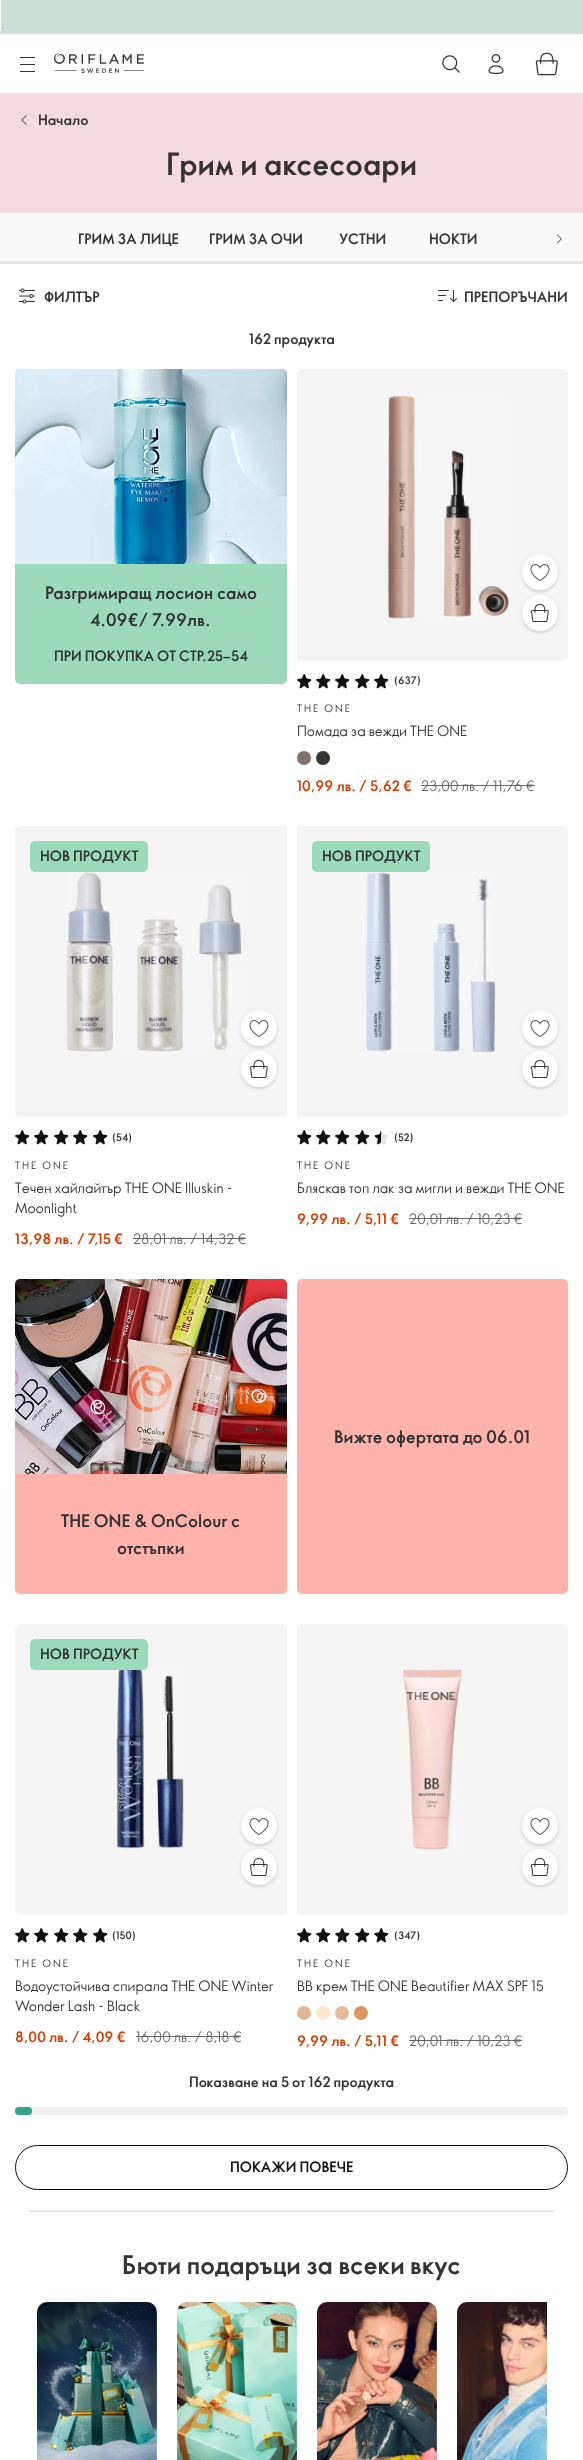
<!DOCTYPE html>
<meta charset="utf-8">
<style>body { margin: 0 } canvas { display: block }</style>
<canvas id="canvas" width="583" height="2460"></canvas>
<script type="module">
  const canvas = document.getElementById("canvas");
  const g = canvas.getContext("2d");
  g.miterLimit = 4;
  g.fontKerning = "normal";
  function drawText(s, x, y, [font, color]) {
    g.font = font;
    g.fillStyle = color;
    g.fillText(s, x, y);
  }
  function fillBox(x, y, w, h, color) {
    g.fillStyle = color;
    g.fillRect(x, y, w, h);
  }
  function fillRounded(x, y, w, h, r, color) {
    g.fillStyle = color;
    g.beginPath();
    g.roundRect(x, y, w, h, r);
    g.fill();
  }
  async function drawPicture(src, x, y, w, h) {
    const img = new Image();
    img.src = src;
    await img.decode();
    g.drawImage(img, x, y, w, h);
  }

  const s1 = ["bold 14px 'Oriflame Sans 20'", "#333333"];
  const s2 = ["bold 30px 'Oriflame Sans 20'", "#333333"];
  const s3 = ["bold 17px 'Oriflame Sans 20'", "#333333"];
  const s4 = ["bold 10px 'Oriflame Sans 20'", "#333333"];
  const s5 = ["10px 'Oriflame Sans 20'", "#333333"];
  const s6 = ["14px 'Oriflame Sans 20'", "#333333"];
  const s7 = ["bold 14px 'Oriflame Sans 20'", "#DA3A00"];
  const s8 = ["14px 'Oriflame Sans 20'", "#666666"];
  const s9 = ["bold 14px 'Oriflame Sans 20'", "#111111"];
  const s10 = ["bold 25px 'Oriflame Sans 20'", "#333333"];

  fillBox(0, 0, 583, 2460, "#FFFFFF");
  fillBox(0, 93, 583, 1, "#E5E5E5");
  fillBox(0, 0, 583, 34, "#CEDFD7");
  fillBox(20, 57, 15, 1, "#333333");
  fillBox(20, 64, 15, 1, "#333333");
  fillBox(20, 71, 15, 1, "#333333");
  await drawPicture("pic1.png", 54, 53, 90, 20);
  await drawPicture("pic2.png", 442, 55, 18, 18);
  await drawPicture("pic3.png", 488, 54, 16, 20);
  await drawPicture("pic4.png", 535, 52, 23, 24);
  fillBox(0, 0, 1, 31, "#FFFFFF");
  fillBox(0, 94, 583, 119, "#F5DADF");
  await drawPicture("pic5.png", 21, 115, 6, 10);
  drawText("Начало", 38, 125, s1);
  drawText("Грим и аксесоари", 166, 175, s2);
  fillBox(0, 213, 583, 48, "#FAFAFA");
  drawText("ГРИМ ЗА ЛИЦЕ", 78, 244, s1);
  drawText("ГРИМ ЗА ОЧИ", 209, 244, s1);
  drawText("УСТНИ", 339, 244, s1);
  drawText("НОКТИ", 429, 244, s1);
  await drawPicture("pic6.png", 557, 234, 5, 10);
  fillBox(0, 261, 583, 3, "#E5E5E5");
  await drawPicture("pic7.png", 19, 288, 16, 16);
  drawText("ФИЛТЪР", 44, 302, s1);
  await drawPicture("pic8.png", 438, 290, 19, 12);
  drawText("ПРЕПОРЪЧАНИ", 464, 302, s1);
  drawText("162 продукта", 249, 344, s1);
  fillRounded(15, 369, 272, 315, 5, "#9CDABC");
  await drawPicture("pic9.png", 15, 369, 272, 195);
  drawText("Разгримиращ лосион само", 45, 599, s3);
  drawText("4.09€/ 7.99лв.", 90, 626, s3);
  drawText("ПРИ ПОКУПКА ОТ СТР.25−54", 54, 661, s1);
  g.fillStyle = "#F5F5F5";
  g.beginPath();
  g.roundRect(297, 369, 271, 272, [5, 5, 0, 0]);
  g.fill();
  await drawPicture("pic10.png", 387, 395, 122, 224);
  g.fillStyle = "rgba(0, 0, 66, 0.08)";
  g.filter = "blur(2.5px)";
  g.beginPath();
  g.roundRect(522, 596, 36, 36, 18);
  g.fill();
  g.filter = "none";
  g.filter = "blur(1px)";
  g.beginPath();
  g.roundRect(522, 597, 36, 36, 18);
  g.fill();
  g.filter = "none";
  g.fillStyle = "#FFFFFF";
  g.beginPath();
  g.arc(540, 613, 18, 0, Math.PI * 2);
  g.fill();
  g.fillStyle = "rgba(0, 0, 66, 0.08)";
  g.filter = "blur(2.5px)";
  g.beginPath();
  g.roundRect(522, 555, 36, 36, 18);
  g.fill();
  g.filter = "none";
  g.filter = "blur(1px)";
  g.beginPath();
  g.roundRect(522, 556, 36, 36, 18);
  g.fill();
  g.filter = "none";
  g.fillStyle = "#FFFFFF";
  g.beginPath();
  g.arc(540, 572, 18, 0, Math.PI * 2);
  g.fill();
  await drawPicture("pic11.png", 530, 564, 20, 17);
  await drawPicture("pic12.png", 531, 604, 18, 18);
  g.fillStyle = "#F5F5F5";
  g.beginPath();
  g.roundRect(297, 641, 271, 20, [0, 0, 5, 5]);
  g.fill();
  await drawPicture("pic13.png", 297, 674, 15, 15);
  await drawPicture("pic13.png", 316, 674, 15, 15);
  await drawPicture("pic13.png", 335, 674, 15, 15);
  await drawPicture("pic13.png", 355, 674, 15, 15);
  await drawPicture("pic13.png", 374, 674, 15, 15);
  drawText("(637)", 394, 684, s4);
  g.letterSpacing = "2px";
  drawText("THE ONE", 297, 712, s5);
  g.letterSpacing = "0px";
  drawText("Помада за вежди THE ONE", 297, 736, s6);
  g.fillStyle = "#81726B";
  g.beginPath();
  g.arc(304, 758, 7, 0, Math.PI * 2);
  g.fill();
  g.fillStyle = "#363533";
  g.beginPath();
  g.arc(323, 758, 7, 0, Math.PI * 2);
  g.fill();
  drawText("10,99 лв. / 5,62 €", 297, 791, s7);
  drawText("23,00 лв. / 11,76 €", 421, 791, s8);
  fillBox(421, 785, 114, 1, "#666666");
  g.fillStyle = "#F5F5F5";
  g.beginPath();
  g.roundRect(15, 826, 272, 271, [5, 5, 0, 0]);
  g.fill();
  fillRounded(30, 841, 118, 31, 5, "#9CDABC");
  drawText("НОВ ПРОДУКТ", 40, 861, s1);
  await drawPicture("pic14.png", 66, 872, 176, 180);
  g.fillStyle = "rgba(0, 0, 66, 0.08)";
  g.filter = "blur(2.5px)";
  g.beginPath();
  g.roundRect(241, 1052, 36, 36, 18);
  g.fill();
  g.filter = "none";
  g.filter = "blur(1px)";
  g.beginPath();
  g.roundRect(241, 1053, 36, 36, 18);
  g.fill();
  g.filter = "none";
  g.fillStyle = "#FFFFFF";
  g.beginPath();
  g.arc(259, 1069, 18, 0, Math.PI * 2);
  g.fill();
  g.fillStyle = "rgba(0, 0, 66, 0.08)";
  g.filter = "blur(2.5px)";
  g.beginPath();
  g.roundRect(241, 1011, 36, 36, 18);
  g.fill();
  g.filter = "none";
  g.filter = "blur(1px)";
  g.beginPath();
  g.roundRect(241, 1012, 36, 36, 18);
  g.fill();
  g.filter = "none";
  g.fillStyle = "#FFFFFF";
  g.beginPath();
  g.arc(259, 1028, 18, 0, Math.PI * 2);
  g.fill();
  await drawPicture("pic11.png", 249, 1020, 20, 17);
  await drawPicture("pic12.png", 250, 1060, 18, 18);
  g.fillStyle = "#F5F5F5";
  g.beginPath();
  g.roundRect(15, 1097, 272, 20, [0, 0, 5, 5]);
  g.fill();
  await drawPicture("pic13.png", 15, 1130, 15, 15);
  await drawPicture("pic13.png", 34, 1130, 15, 15);
  await drawPicture("pic13.png", 54, 1130, 15, 15);
  await drawPicture("pic13.png", 73, 1130, 15, 15);
  await drawPicture("pic13.png", 93, 1130, 15, 15);
  drawText("(54)", 112, 1141, s4);
  g.letterSpacing = "2px";
  drawText("THE ONE", 15, 1169, s5);
  g.letterSpacing = "0px";
  drawText("Течен хайлайтър THE ONE Illuskin -", 15, 1193, s6);
  drawText("Moonlight", 15, 1213, s6);
  drawText("13,98 лв. / 7,15 €", 15, 1244, s7);
  drawText("28,01 лв. / 14,32 €", 133, 1244, s8);
  fillBox(133, 1238, 113, 1, "#666666");
  g.fillStyle = "#F5F5F5";
  g.beginPath();
  g.roundRect(297, 826, 271, 271, [5, 5, 0, 0]);
  g.fill();
  fillRounded(312, 841, 118, 31, 5, "#9CDABC");
  drawText("НОВ ПРОДУКТ", 322, 861, s1);
  await drawPicture("pic15.png", 366, 872, 130, 182);
  g.fillStyle = "rgba(0, 0, 66, 0.08)";
  g.filter = "blur(2.5px)";
  g.beginPath();
  g.roundRect(522, 1052, 36, 36, 18);
  g.fill();
  g.filter = "none";
  g.filter = "blur(1px)";
  g.beginPath();
  g.roundRect(522, 1053, 36, 36, 18);
  g.fill();
  g.filter = "none";
  g.fillStyle = "#FFFFFF";
  g.beginPath();
  g.arc(540, 1069, 18, 0, Math.PI * 2);
  g.fill();
  g.fillStyle = "rgba(0, 0, 66, 0.08)";
  g.filter = "blur(2.5px)";
  g.beginPath();
  g.roundRect(522, 1011, 36, 36, 18);
  g.fill();
  g.filter = "none";
  g.filter = "blur(1px)";
  g.beginPath();
  g.roundRect(522, 1012, 36, 36, 18);
  g.fill();
  g.filter = "none";
  g.fillStyle = "#FFFFFF";
  g.beginPath();
  g.arc(540, 1028, 18, 0, Math.PI * 2);
  g.fill();
  await drawPicture("pic11.png", 530, 1020, 20, 17);
  await drawPicture("pic12.png", 531, 1060, 18, 18);
  g.fillStyle = "#F5F5F5";
  g.beginPath();
  g.roundRect(297, 1097, 271, 20, [0, 0, 5, 5]);
  g.fill();
  await drawPicture("pic13.png", 297, 1130, 15, 15);
  await drawPicture("pic13.png", 316, 1130, 15, 15);
  await drawPicture("pic13.png", 335, 1130, 15, 15);
  await drawPicture("pic13.png", 355, 1130, 15, 15);
  await drawPicture("pic16.png", 374, 1130, 14, 15);
  await drawPicture("pic17.png", 374, 1130, 7, 15);
  drawText("(52)", 394, 1141, s4);
  g.letterSpacing = "2px";
  drawText("THE ONE", 297, 1169, s5);
  g.letterSpacing = "0px";
  drawText("Бляскав топ лак за мигли и вежди THE ONE", 297, 1193, s6);
  drawText("9,99 лв. / 5,11 €", 297, 1224, s7);
  drawText("20,01 лв. / 10,23 €", 409, 1224, s8);
  fillBox(409, 1218, 113, 1, "#666666");
  fillRounded(297, 1279, 271, 315, 5, "#FFB3AA");
  drawText("Вижте офертата до 06.01", 334, 1443, s3);
  fillRounded(15, 1279, 272, 315, 5, "#FFB3AA");
  await drawPicture("pic18.png", 15, 1279, 272, 195);
  drawText("THE ONE & OnColour с", 61, 1527, s3);
  drawText("отстъпки", 117, 1554, s3);
  g.fillStyle = "#F5F5F5";
  g.beginPath();
  g.roundRect(15, 1624, 272, 271, [5, 5, 0, 0]);
  g.fill();
  await drawPicture("pic19.png", 116, 1668, 69, 181);
  fillRounded(30, 1639, 118, 31, 5, "#9CDABC");
  drawText("НОВ ПРОДУКТ", 40, 1659, s1);
  g.fillStyle = "rgba(0, 0, 66, 0.08)";
  g.filter = "blur(2.5px)";
  g.beginPath();
  g.roundRect(241, 1850, 36, 36, 18);
  g.fill();
  g.filter = "none";
  g.filter = "blur(1px)";
  g.beginPath();
  g.roundRect(241, 1851, 36, 36, 18);
  g.fill();
  g.filter = "none";
  g.fillStyle = "#FFFFFF";
  g.beginPath();
  g.arc(259, 1867, 18, 0, Math.PI * 2);
  g.fill();
  g.fillStyle = "rgba(0, 0, 66, 0.08)";
  g.filter = "blur(2.5px)";
  g.beginPath();
  g.roundRect(241, 1809, 36, 36, 18);
  g.fill();
  g.filter = "none";
  g.filter = "blur(1px)";
  g.beginPath();
  g.roundRect(241, 1810, 36, 36, 18);
  g.fill();
  g.filter = "none";
  g.fillStyle = "#FFFFFF";
  g.beginPath();
  g.arc(259, 1826, 18, 0, Math.PI * 2);
  g.fill();
  await drawPicture("pic11.png", 249, 1818, 20, 17);
  await drawPicture("pic12.png", 250, 1858, 18, 18);
  g.fillStyle = "#F5F5F5";
  g.beginPath();
  g.roundRect(15, 1895, 272, 20, [0, 0, 5, 5]);
  g.fill();
  await drawPicture("pic13.png", 15, 1928, 15, 15);
  await drawPicture("pic13.png", 34, 1928, 15, 15);
  await drawPicture("pic13.png", 54, 1928, 15, 15);
  await drawPicture("pic13.png", 73, 1928, 15, 15);
  await drawPicture("pic13.png", 93, 1928, 15, 15);
  drawText("(150)", 112, 1939, s4);
  g.letterSpacing = "2px";
  drawText("THE ONE", 15, 1967, s5);
  g.letterSpacing = "0px";
  drawText("Водоустойчива спирала THE ONE Winter", 15, 1991, s6);
  drawText("Wonder Lash - Black", 15, 2011, s6);
  drawText("8,00 лв. / 4,09 €", 15, 2042, s7);
  drawText("16,00 лв. / 8,18 €", 136, 2042, s8);
  fillBox(136, 2036, 105, 1, "#666666");
  g.fillStyle = "#F5F5F5";
  g.beginPath();
  g.roundRect(297, 1624, 271, 271, [5, 5, 0, 0]);
  g.fill();
  await drawPicture("pic20.png", 403, 1668, 60, 184);
  g.fillStyle = "rgba(0, 0, 66, 0.08)";
  g.filter = "blur(2.5px)";
  g.beginPath();
  g.roundRect(522, 1850, 36, 36, 18);
  g.fill();
  g.filter = "none";
  g.filter = "blur(1px)";
  g.beginPath();
  g.roundRect(522, 1851, 36, 36, 18);
  g.fill();
  g.filter = "none";
  g.fillStyle = "#FFFFFF";
  g.beginPath();
  g.arc(540, 1867, 18, 0, Math.PI * 2);
  g.fill();
  g.fillStyle = "rgba(0, 0, 66, 0.08)";
  g.filter = "blur(2.5px)";
  g.beginPath();
  g.roundRect(522, 1809, 36, 36, 18);
  g.fill();
  g.filter = "none";
  g.filter = "blur(1px)";
  g.beginPath();
  g.roundRect(522, 1810, 36, 36, 18);
  g.fill();
  g.filter = "none";
  g.fillStyle = "#FFFFFF";
  g.beginPath();
  g.arc(540, 1826, 18, 0, Math.PI * 2);
  g.fill();
  await drawPicture("pic11.png", 530, 1818, 20, 17);
  await drawPicture("pic12.png", 531, 1858, 18, 18);
  g.fillStyle = "#F5F5F5";
  g.beginPath();
  g.roundRect(297, 1895, 271, 20, [0, 0, 5, 5]);
  g.fill();
  await drawPicture("pic13.png", 297, 1928, 15, 15);
  await drawPicture("pic13.png", 316, 1928, 15, 15);
  await drawPicture("pic13.png", 335, 1928, 15, 15);
  await drawPicture("pic13.png", 355, 1928, 15, 15);
  await drawPicture("pic13.png", 374, 1928, 15, 15);
  drawText("(347)", 394, 1939, s4);
  g.letterSpacing = "2px";
  drawText("THE ONE", 297, 1967, s5);
  g.letterSpacing = "0px";
  drawText("BB крем THE ONE Beautifier MAX SPF 15", 297, 1991, s6);
  g.fillStyle = "#E1B892";
  g.beginPath();
  g.arc(304, 2013, 7, 0, Math.PI * 2);
  g.fill();
  g.fillStyle = "#FFE8CB";
  g.beginPath();
  g.arc(323, 2013, 7, 0, Math.PI * 2);
  g.fill();
  g.fillStyle = "#E8BB94";
  g.beginPath();
  g.arc(342, 2013, 7, 0, Math.PI * 2);
  g.fill();
  g.fillStyle = "#DB9762";
  g.beginPath();
  g.arc(361, 2013, 7, 0, Math.PI * 2);
  g.fill();
  drawText("9,99 лв. / 5,11 €", 297, 2046, s7);
  drawText("20,01 лв. / 10,23 €", 409, 2046, s8);
  fillBox(409, 2040, 113, 1, "#666666");
  drawText("Показване на 5 от 162 продукта", 189, 2087, s1);
  fillRounded(15, 2107, 553, 8, 4, "#F0F0F0");
  fillRounded(15, 2107, 17, 8, 4, "#32A58E");
  g.beginPath();
  g.roundRect(15.5, 2145.5, 552, 44, 22);
  g.strokeStyle = "#111111";
  g.stroke();
  drawText("ПОКАЖИ ПОВЕЧЕ", 230, 2172, s9);
  fillBox(29, 2210, 525, 1, "#F5F5F5");
  fillBox(29, 2211, 525, 1, "#D8D8D8");
  drawText("Бюти подаръци за всеки вкус", 122, 2274, s10);
  await drawPicture("pic21.png", 37, 2302, 120, 158);
  await drawPicture("pic22.png", 177, 2302, 120, 158);
  await drawPicture("pic23.png", 317, 2302, 120, 158);
  await drawPicture("pic24.png", 457, 2302, 90, 158);
</script>
